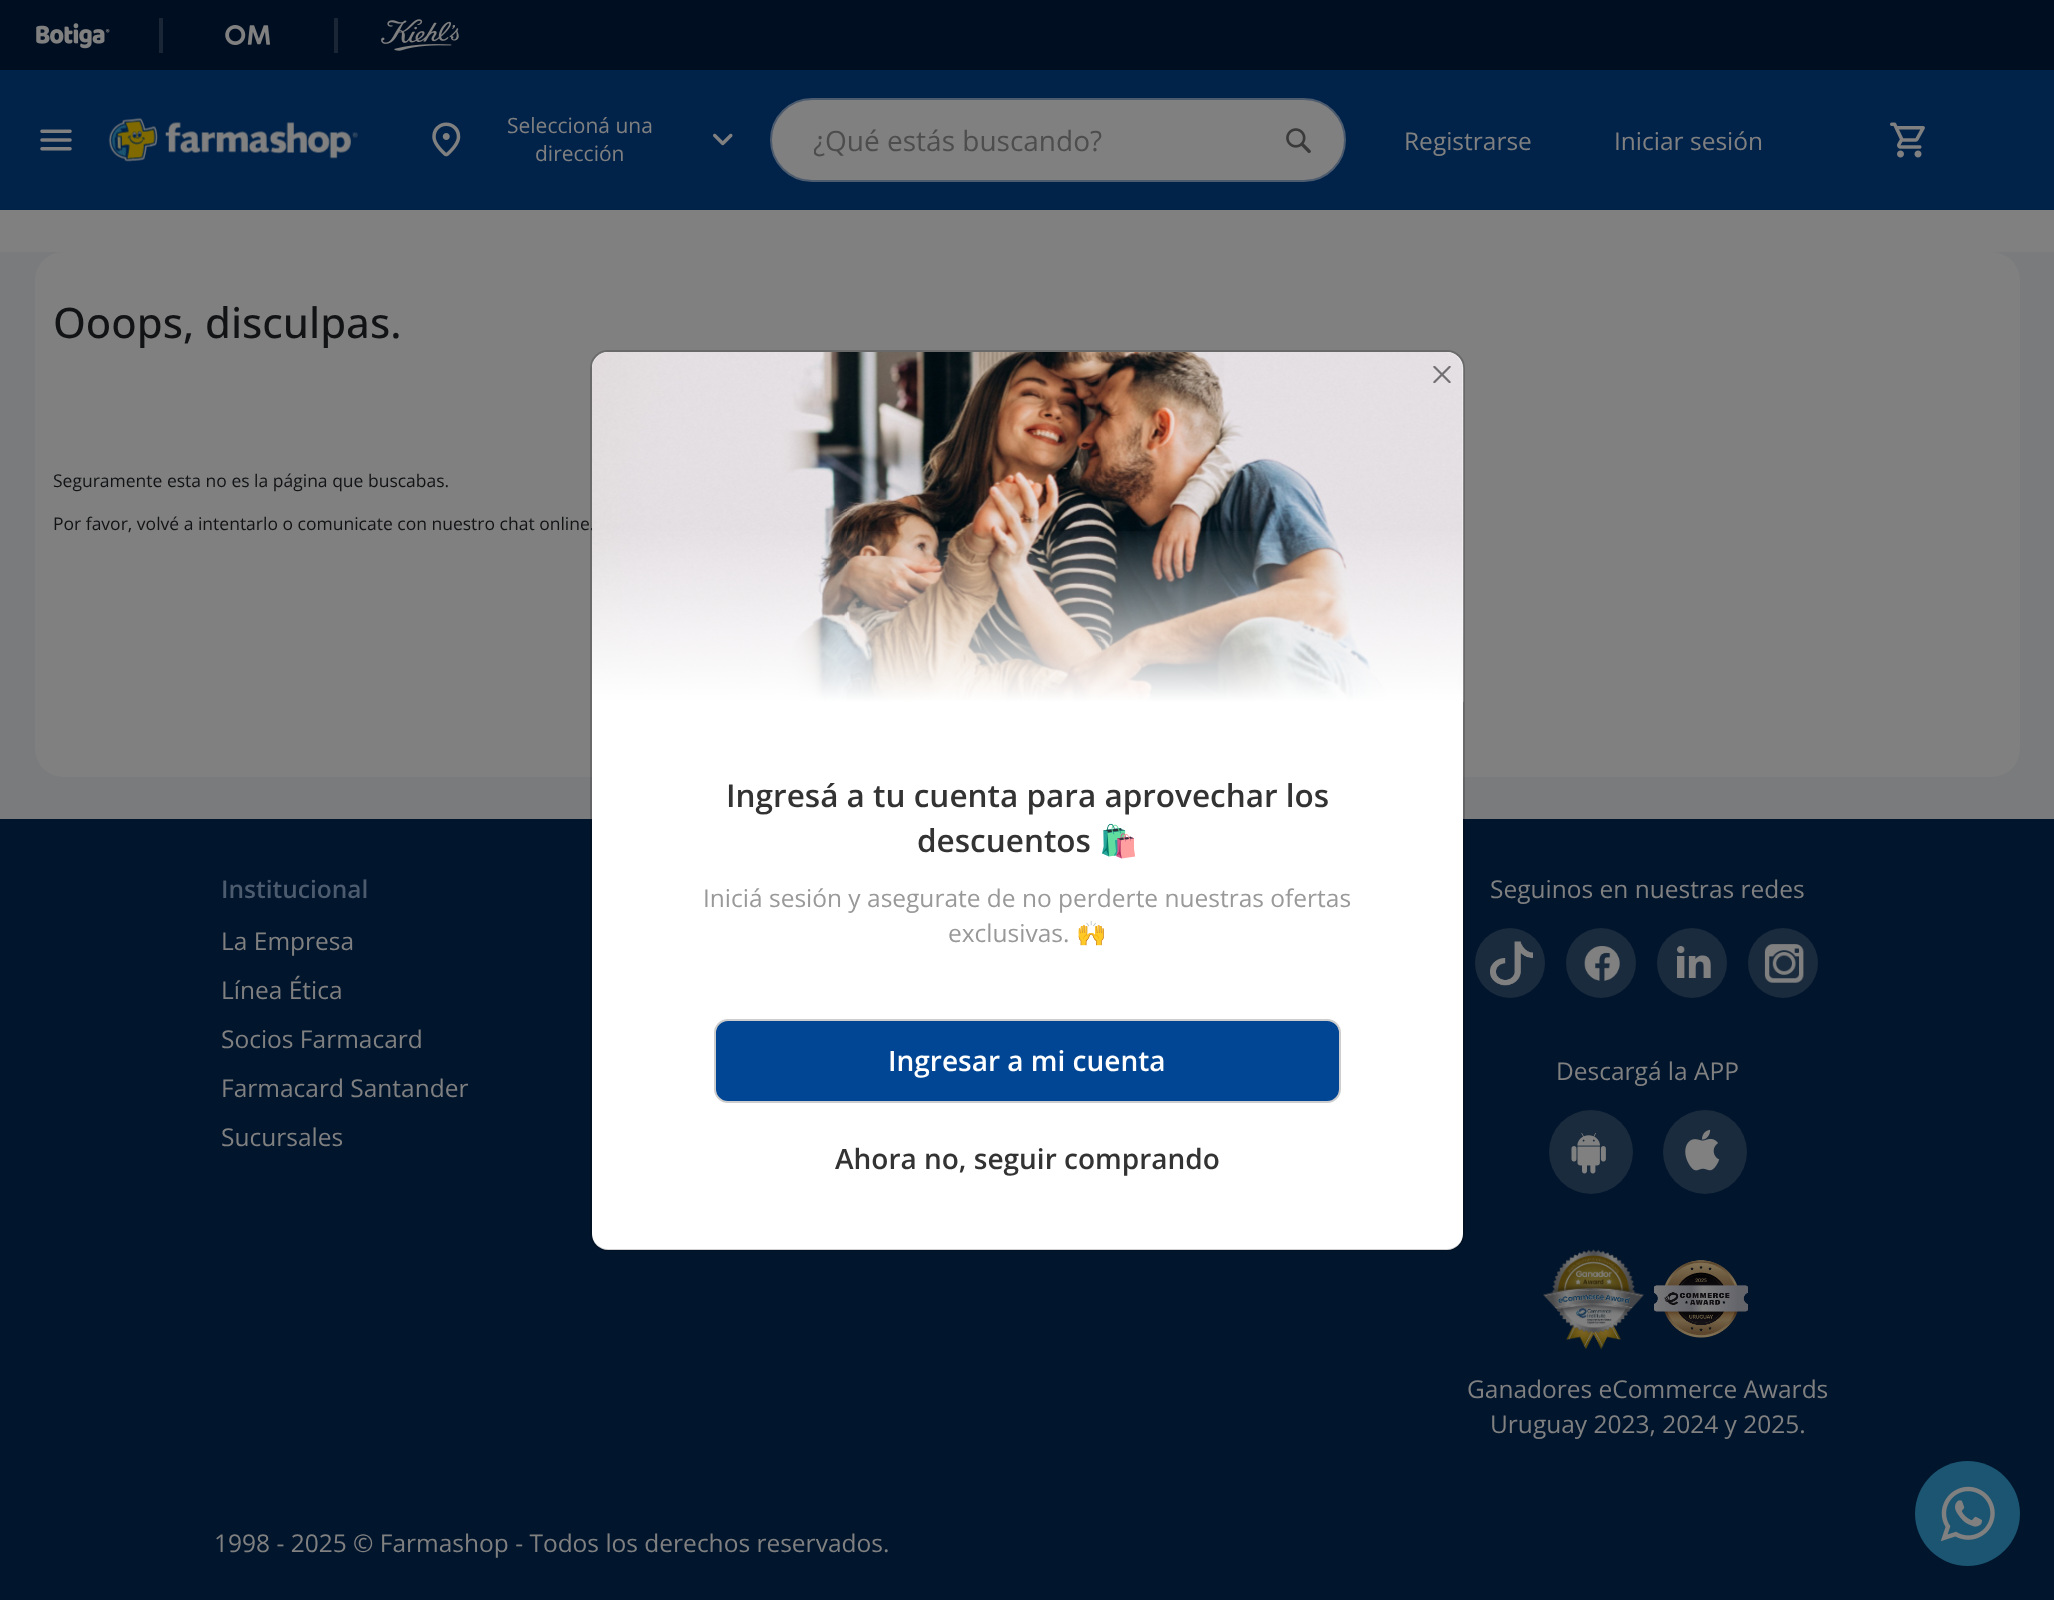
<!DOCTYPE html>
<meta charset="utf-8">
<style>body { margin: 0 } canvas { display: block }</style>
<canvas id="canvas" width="2054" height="1600"></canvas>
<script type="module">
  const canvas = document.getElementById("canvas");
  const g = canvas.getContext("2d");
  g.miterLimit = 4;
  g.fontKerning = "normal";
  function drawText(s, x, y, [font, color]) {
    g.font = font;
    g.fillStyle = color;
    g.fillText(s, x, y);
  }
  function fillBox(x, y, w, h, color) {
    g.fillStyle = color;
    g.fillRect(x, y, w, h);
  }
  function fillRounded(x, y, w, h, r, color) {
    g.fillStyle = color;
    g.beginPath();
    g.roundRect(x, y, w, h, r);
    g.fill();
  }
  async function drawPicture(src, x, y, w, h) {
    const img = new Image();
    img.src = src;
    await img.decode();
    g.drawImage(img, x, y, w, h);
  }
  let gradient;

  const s1 = ["21px Open Sans", "#808080"];
  const s2 = ["28px Open Sans", "#4D4D4D"];
  const s3 = ["24.5px Open Sans", "#808080"];
  const s4 = ["500 42px Open Sans", "#111315"];
  const s5 = ["17.5px Open Sans", "#111315"];
  const s6 = ["600 31.5px Open Sans", "#333333"];
  const s7 = ["bold 31.5px Noto Color Emoji", "#333333"];
  const s8 = ["24.5px Open Sans", "#999999"];
  const s9 = ["24.5px Noto Color Emoji", "#999999"];
  const s10 = ["600 28px Open Sans", "#FFFFFF"];
  const s11 = ["600 28px Open Sans", "#333333"];
  const s12 = ["600 24.5px Open Sans", "#4D5B6E"];

  fillBox(0, 0, 2054, 1600, "#808080");
  fillBox(0, 252, 2054, 567, "#797B7D");
  fillBox(0, 70, 2054, 140, "#01234A");
  fillBox(0, 0, 2054, 70, "#000E22");
  fillBox(159, 18, 4, 35, "#1A2535");
  await drawPicture("pic1.png", 36, 23, 74, 26);
  fillBox(334, 18, 4, 35, "#1A2535");
  await drawPicture("pic2.png", 225, 25, 45, 20);
  await drawPicture("pic3.png", 381, 19, 78, 32);
  await drawPicture("pic4.png", 40, 129, 32, 22);
  await drawPicture("pic5.png", 108, 118, 250, 44);
  await drawPicture("pic6.png", 432, 122, 29, 35);
  drawText("Seleccioná una", 507, 133, s1);
  drawText("dirección", 535, 161, s1);
  await drawPicture("pic7.png", 713, 133, 20, 13);
  g.beginPath();
  g.roundRect(771, 99, 574, 82, 41);
  g.fill();
  g.strokeStyle = "#4D5B6E";
  g.lineWidth = 2;
  g.stroke();
  g.save();
  g.beginPath();
  g.rect(814, 121, 451, 38);
  g.clip();
  drawText("¿Qué estás buscando?", 813, 151, s2);
  g.restore();
  await drawPicture("pic8.png", 1286, 128, 25, 26);
  drawText("Registrarse", 1404, 150, s3);
  drawText("Iniciar sesión", 1614, 150, s3);
  await drawPicture("pic9.png", 1890, 122, 35, 36);
  fillRounded(35, 252, 1985, 525, 28, "#808080");
  drawText("Ooops, disculpas.", 53, 338, s4);
  drawText("Seguramente esta no es la página que buscabas.", 53, 487, s5);
  drawText("Por favor, volvé a intentarlo o comunicate con nuestro chat online.", 53, 530, s5);
  fillBox(0, 819, 2054, 781, "#01152D");
  fillRounded(592, 352, 871, 898, 16, "#FFFFFF");
  g.beginPath();
  g.roundRect(591, 351, 873, 899, 17);
  g.strokeStyle = "rgba(0, 0, 0, 0.18)";
  g.stroke();
  await drawPicture("pic10.png", 592, 352, 872, 350);
  await drawPicture("pic11.png", 1433, 366, 18, 17);
  gradient = g.createLinearGradient(1027, 527, 1027, 702);
  gradient.addColorStop(0, "rgba(255, 255, 255, 0)");
  gradient.addColorStop(1, "#FFFFFF");
  g.fillStyle = gradient;
  g.fillRect(592, 531, 871, 171);
  drawText("Ingresá a tu cuenta para aprovechar los", 726, 807, s6);
  drawText("descuentos", 917, 852, s6);
  drawText("🛍️", 1099, 852, s7);
  drawText("Iniciá sesión y asegurate de no perderte nuestras ofertas", 703, 907, s8);
  drawText("exclusivas.", 948, 942, s8);
  drawText("🙌", 1076, 942, s9);
  g.fillStyle = "#014694";
  g.beginPath();
  g.roundRect(715, 1020, 625, 82, 13);
  g.fill();
  g.strokeStyle = "#CDCDCD";
  g.stroke();
  drawText("Ingresar a mi cuenta", 888, 1071, s10);
  drawText("Ahora no, seguir comprando", 835, 1169, s11);
  drawText("Institucional", 221, 898, s12);
  drawText("La Empresa", 221, 950, s3);
  drawText("Línea Ética", 221, 999, s3);
  drawText("Socios Farmacard", 221, 1048, s3);
  drawText("Farmacard Santander", 221, 1097, s3);
  drawText("Sucursales", 221, 1146, s3);
  drawText("Seguinos en nuestras redes", 1490, 898, s3);
  g.fillStyle = "#1A2B3D";
  g.beginPath();
  g.arc(1510, 963, 35, 0, Math.PI * 2);
  g.fill();
  await drawPicture("pic12.png", 1490, 941, 43, 45);
  g.beginPath();
  g.arc(1601, 963, 35, 0, Math.PI * 2);
  g.fill();
  await drawPicture("pic13.png", 1584, 946, 36, 35);
  g.beginPath();
  g.arc(1692, 963, 35, 0, Math.PI * 2);
  g.fill();
  await drawPicture("pic14.png", 1677, 946, 34, 32);
  g.beginPath();
  g.arc(1783, 963, 35, 0, Math.PI * 2);
  g.fill();
  await drawPicture("pic15.png", 1764, 944, 40, 39);
  drawText("Descargá la APP", 1556, 1080, s3);
  g.fillStyle = "#1A2B3D";
  g.beginPath();
  g.arc(1591, 1152, 42, 0, Math.PI * 2);
  g.fill();
  await drawPicture("pic16.png", 1571, 1132, 35, 42);
  g.beginPath();
  g.arc(1705, 1152, 42, 0, Math.PI * 2);
  g.fill();
  await drawPicture("pic17.png", 1685, 1129, 35, 42);
  await drawPicture("pic18.png", 1543, 1249, 101, 101);
  await drawPicture("pic19.png", 1654, 1260, 94, 78);
  drawText("Ganadores eCommerce Awards", 1467, 1398, s3);
  drawText("Uruguay 2023, 2024 y 2025.", 1490, 1433, s3);
  drawText("1998 - 2025 © Farmashop - Todos los derechos reservados.", 214, 1552, s3);
  g.fillStyle = "#1B5571";
  g.beginPath();
  g.arc(1967.5, 1513.5, 52.5, 0, Math.PI * 2);
  g.fill();
  await drawPicture("pic20.png", 1940, 1486, 55, 56);
</script>
